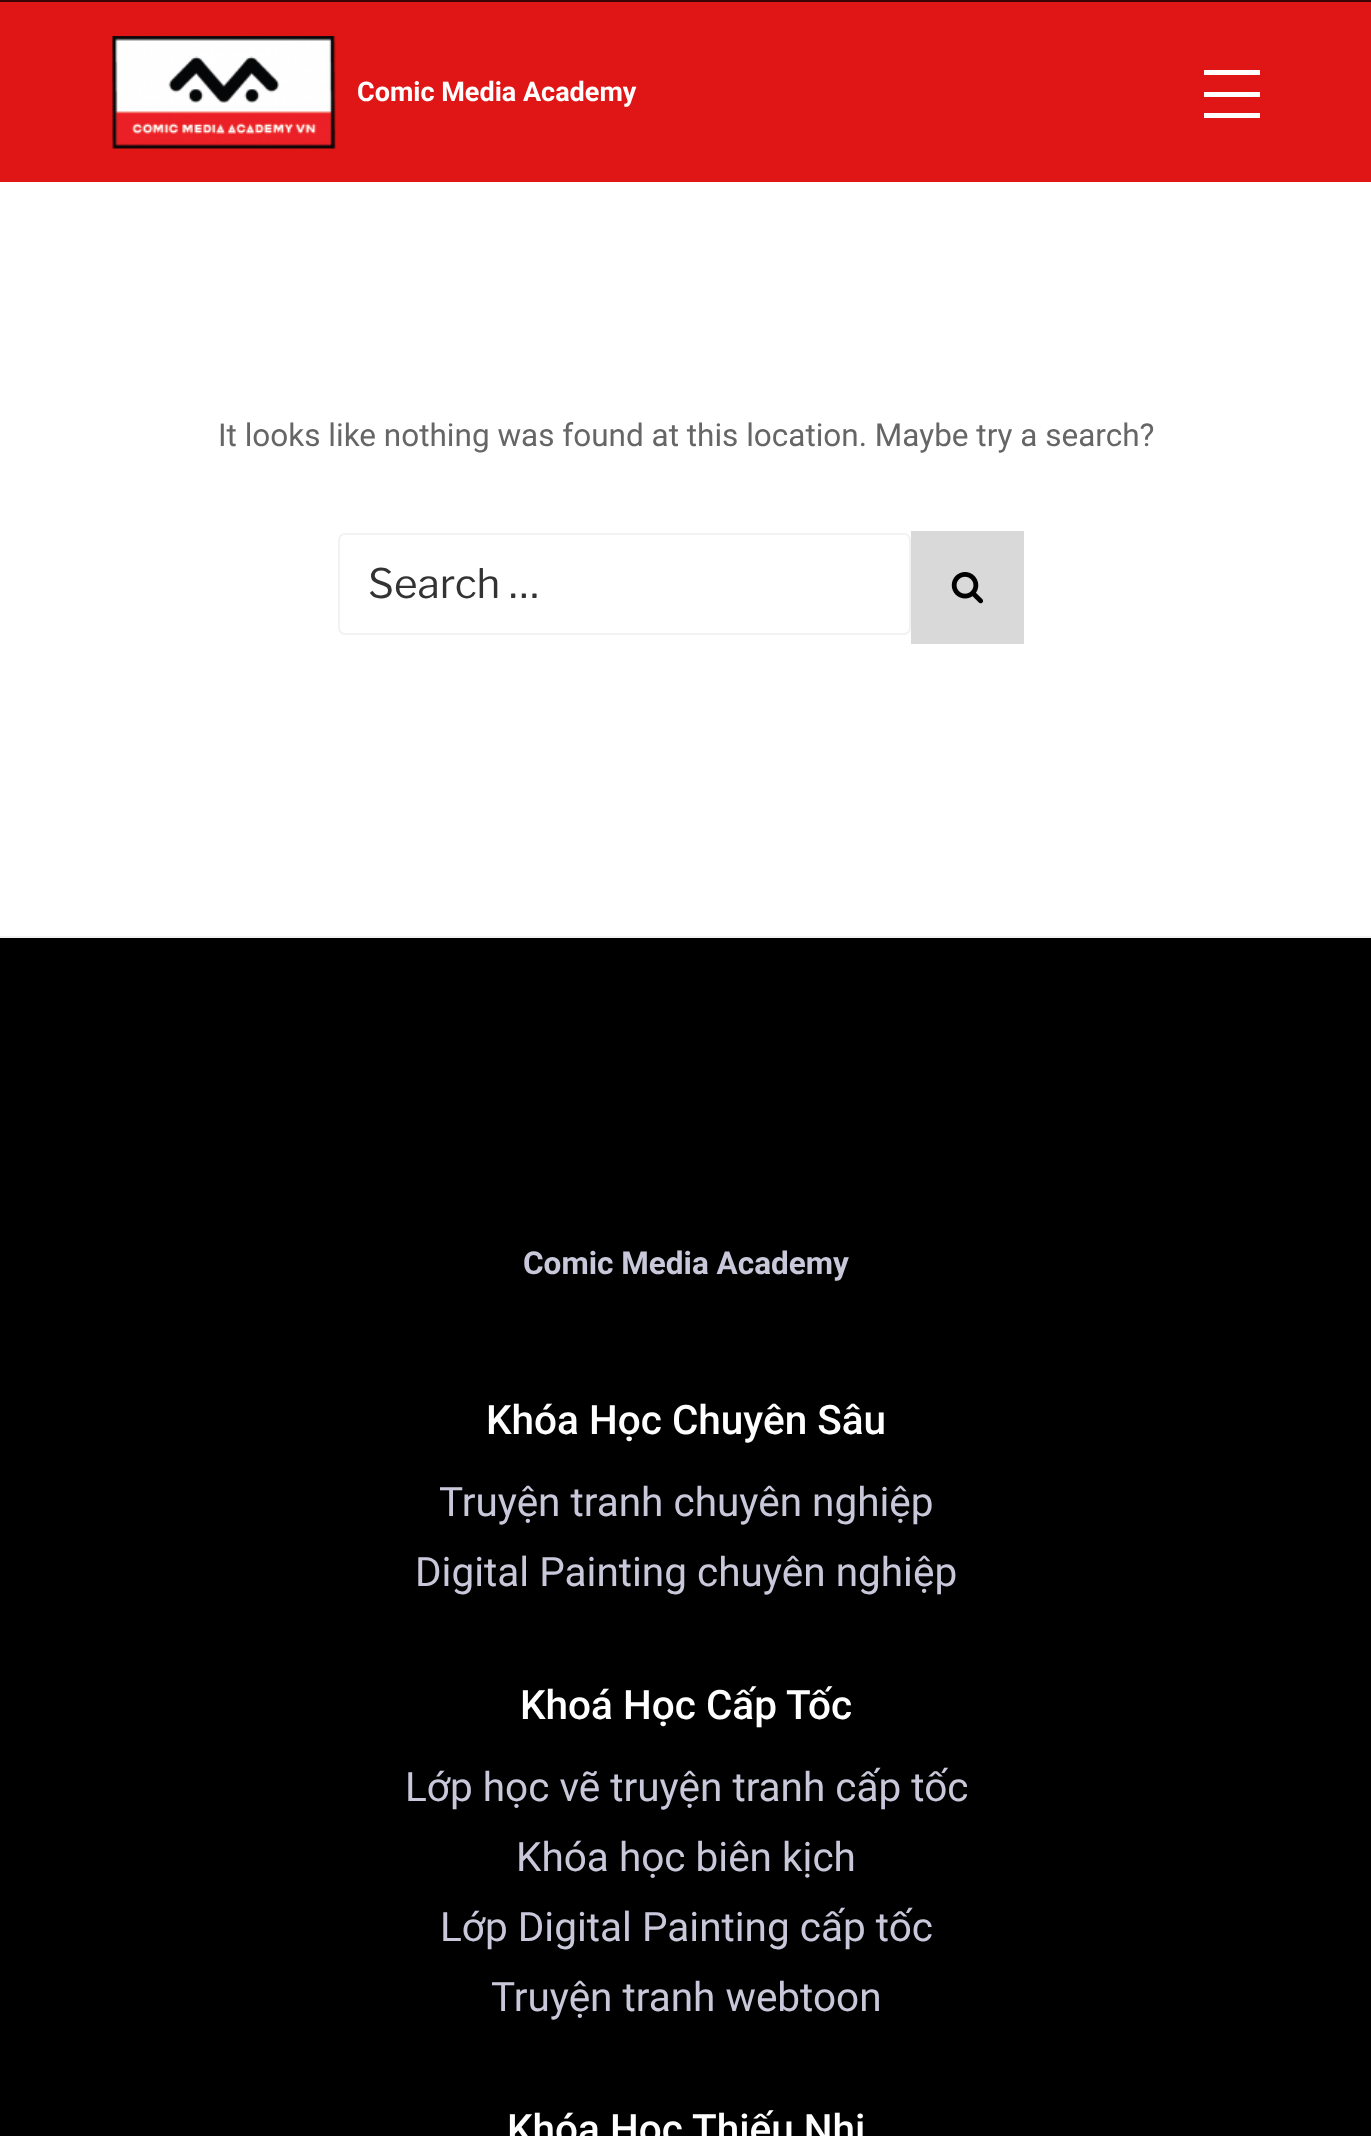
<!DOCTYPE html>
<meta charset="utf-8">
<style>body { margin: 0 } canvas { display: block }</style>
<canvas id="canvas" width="1371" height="2136"></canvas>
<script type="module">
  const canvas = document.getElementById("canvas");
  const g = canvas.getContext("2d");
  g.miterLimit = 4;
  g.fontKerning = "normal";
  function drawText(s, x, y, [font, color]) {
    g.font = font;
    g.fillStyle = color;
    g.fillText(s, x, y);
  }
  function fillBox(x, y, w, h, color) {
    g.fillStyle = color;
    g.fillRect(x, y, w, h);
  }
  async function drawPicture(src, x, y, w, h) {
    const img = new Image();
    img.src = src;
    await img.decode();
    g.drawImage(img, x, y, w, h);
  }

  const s1 = ["bold 27px Roboto", "#FFFFFF"];
  const s2 = ["31.5px Roboto", "#666666"];
  const s3 = ["40.5px Libre Franklin", "#333333"];
  const s4 = ["bold 31.5px Roboto", "#C8C8DA"];
  const s5 = ["500 40.5px Roboto", "#FFFFFF"];
  const s6 = ["40.5px Roboto", "#C8C8DA"];

  fillBox(0, 0, 1371, 2136, "#FFFFFF");
  fillBox(0, 2, 1371, 180, "#E01515");
  fillBox(0, 0, 1371, 2, "#3C0505");
  await drawPicture("pic1.png", 112, 36, 224, 113);
  drawText("Comic Media Academy", 357, 101, s1);
  fillBox(1204, 70, 56, 5, "#FFFFFF");
  fillBox(1204, 92, 56, 5, "#FFFFFF");
  fillBox(1204, 113, 56, 5, "#FFFFFF");
  drawText("It looks like nothing was found at this location. Maybe try a search?", 218, 446, s2);
  g.beginPath();
  g.roundRect(339, 534, 571, 100, 6);
  g.strokeStyle = "#F2F2F2";
  g.lineWidth = 2;
  g.stroke();
  drawText("Search …", 368, 598, s3);
  fillBox(911, 531, 113, 113, "#D9D9D9");
  await drawPicture("pic2.png", 951, 572, 33, 32);
  fillBox(0, 938, 1371, 1198, "#000000");
  fillBox(0, 936, 1371, 2, "#F2F2F2");
  drawText("Comic Media Academy", 523, 1274, s4);
  drawText("Khóa Học Chuyên Sâu", 486, 1434, s5);
  drawText("Truyện tranh chuyên nghiệp", 439, 1516, s6);
  drawText("Digital Painting chuyên nghiệp", 415, 1586, s6);
  drawText("Khoá Học Cấp Tốc", 520, 1719, s5);
  drawText("Lớp học vẽ truyện tranh cấp tốc", 405, 1801, s6);
  drawText("Khóa học biên kịch", 516, 1871, s6);
  drawText("Lớp Digital Painting cấp tốc", 440, 1941, s6);
  drawText("Truyện tranh webtoon", 491, 2011, s6);
  drawText("Khóa Học Thiếu Nhi", 507, 2143, s5);
</script>
